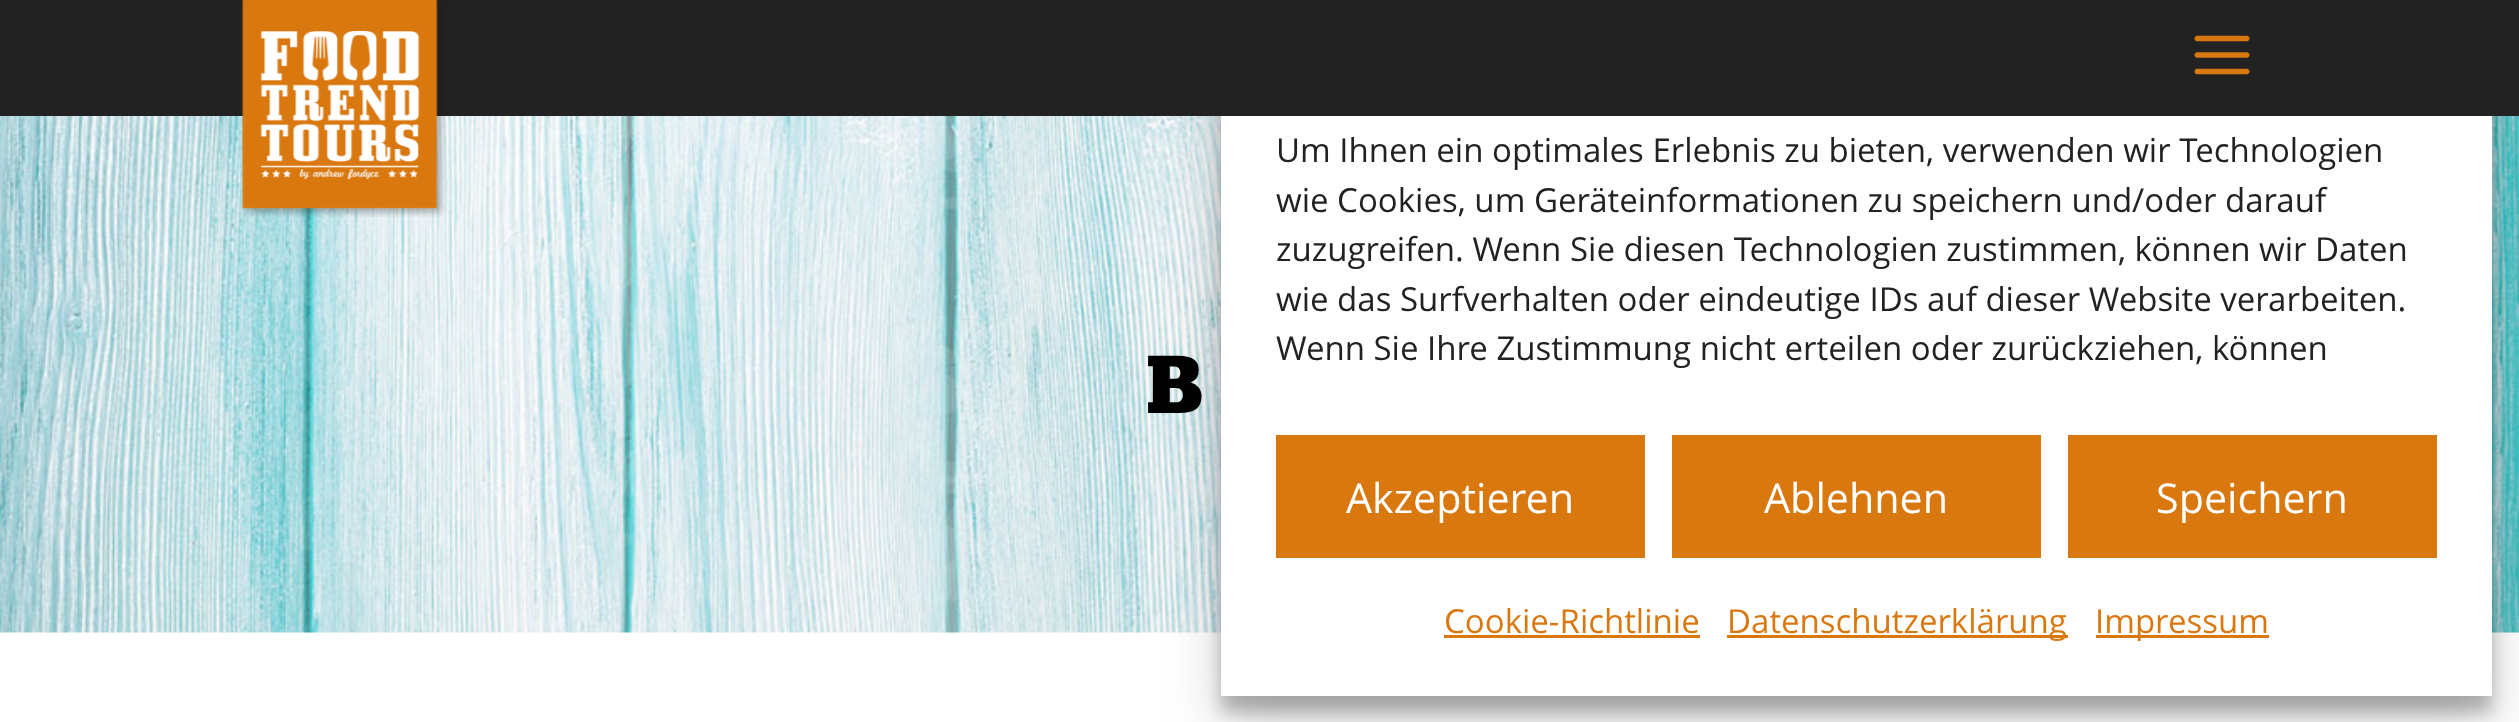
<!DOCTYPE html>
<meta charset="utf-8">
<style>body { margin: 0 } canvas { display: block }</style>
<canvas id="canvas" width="2519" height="722"></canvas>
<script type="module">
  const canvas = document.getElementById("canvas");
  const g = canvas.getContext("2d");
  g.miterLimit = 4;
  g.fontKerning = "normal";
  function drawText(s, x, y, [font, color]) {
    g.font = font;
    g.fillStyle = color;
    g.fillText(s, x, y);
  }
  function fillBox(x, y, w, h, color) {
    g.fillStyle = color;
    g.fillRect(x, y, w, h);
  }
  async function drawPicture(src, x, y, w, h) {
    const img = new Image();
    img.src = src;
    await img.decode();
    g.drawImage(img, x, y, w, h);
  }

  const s1 = ["82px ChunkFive", "#000000"];
  const s2 = ["33px Open Sans", "#222222"];
  const s3 = ["41.25px Open Sans", "#FFFFFF"];
  const s4 = ["33px Open Sans", "#DA7810"];

  fillBox(0, 0, 2519, 722, "#FFFFFF");
  await drawPicture("pic3.png", 0, 116, 2519, 517);
  g.fillStyle = "rgba(0, 0, 0, 0.23)";
  g.filter = "blur(8px)";
  g.beginPath();
  g.rect(1221, 44, 1271, 668);
  g.fill();
  g.filter = "none";
  g.fillStyle = "rgba(0, 0, 0, 0.19)";
  g.filter = "blur(27.5px)";
  g.beginPath();
  g.rect(1221, 55, 1271, 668);
  g.fill();
  g.filter = "none";
  fillBox(0, 0, 2519, 116, "#222222");
  await drawPicture("pic1.png", 242, 0, 204, 217);
  await drawPicture("pic2.png", 2194, 35, 56, 40);
  drawText("B", 1146, 413, s1);
  fillBox(1221, 116, 1271, 580, "#FFFFFF");
  drawText("Um Ihnen ein optimales Erlebnis zu bieten, verwenden wir Technologien", 1276, 162, s2);
  drawText("wie Cookies, um Geräteinformationen zu speichern und/oder darauf", 1276, 212, s2);
  drawText("zuzugreifen. Wenn Sie diesen Technologien zustimmen, können wir Daten", 1276, 261, s2);
  drawText("wie das Surfverhalten oder eindeutige IDs auf dieser Website verarbeiten.", 1276, 311, s2);
  drawText("Wenn Sie Ihre Zustimmung nicht erteilen oder zurückziehen, können", 1276, 360, s2);
  fillBox(1276, 435, 369, 123, "#DA7810");
  drawText("Akzeptieren", 1346, 513, s3);
  fillBox(1672, 435, 369, 123, "#DA7810");
  drawText("Ablehnen", 1764, 513, s3);
  fillBox(2068, 435, 369, 123, "#DA7810");
  drawText("Speichern", 2156, 513, s3);
  drawText("Cookie-Richtlinie", 1444, 633, s4);
  fillBox(1444, 635, 256, 3, "#DA7810");
  fillBox(1727, 635, 341, 3, "#DA7810");
  drawText("Datenschutzerklärung", 1727, 633, s4);
  fillBox(2096, 635, 173, 3, "#DA7810");
  drawText("Impressum", 2095, 633, s4);
</script>
